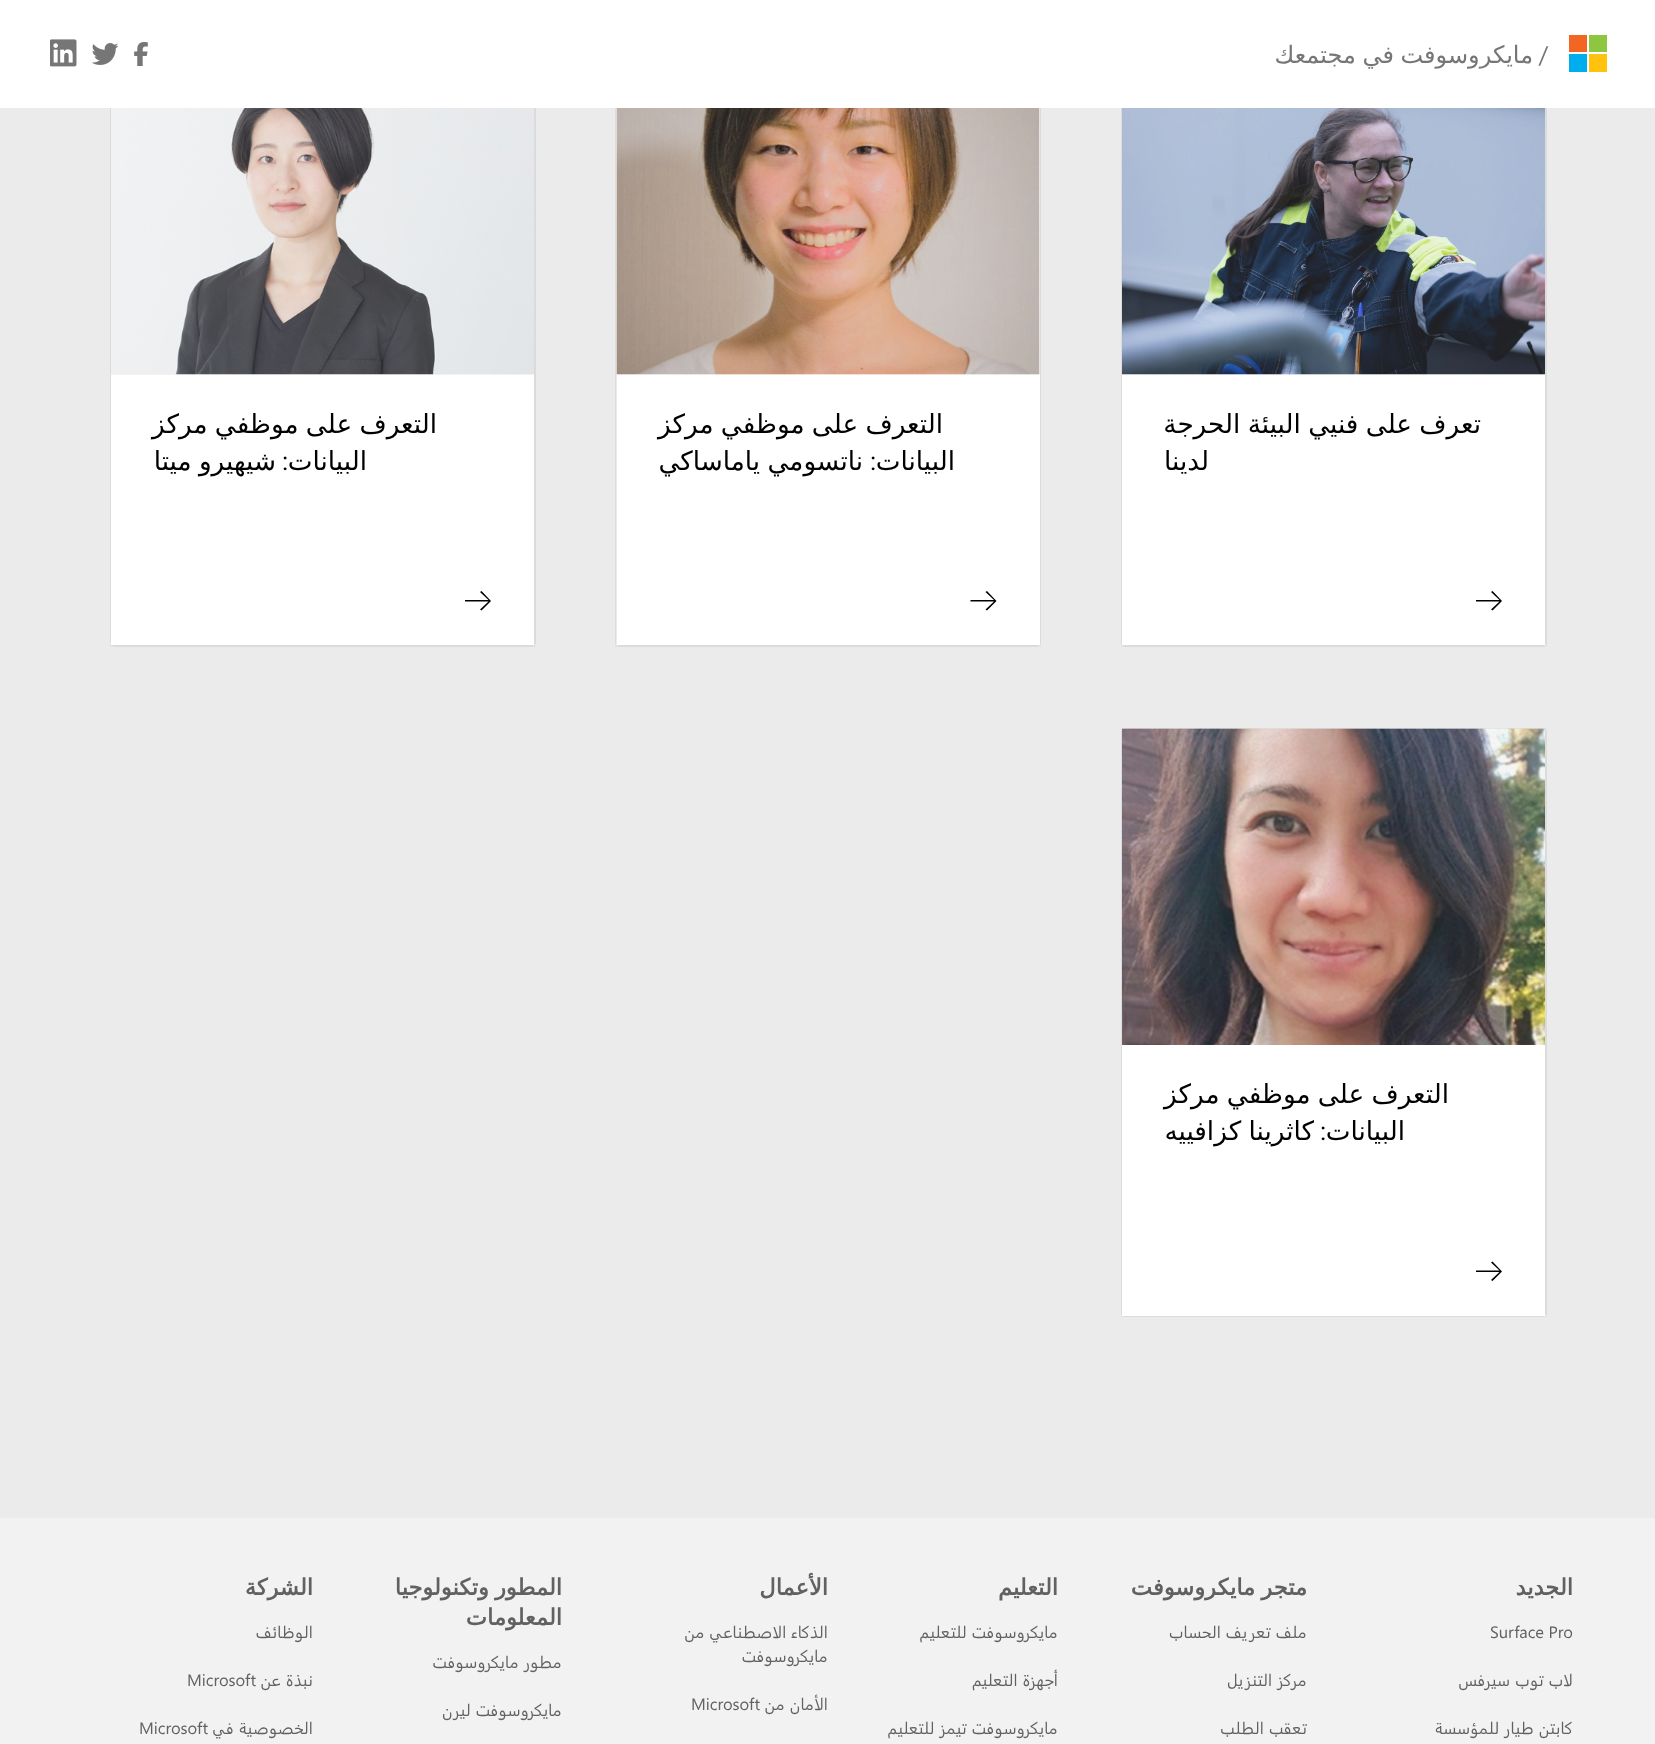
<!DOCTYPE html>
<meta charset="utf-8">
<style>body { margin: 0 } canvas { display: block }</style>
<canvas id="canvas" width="1655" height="1744"></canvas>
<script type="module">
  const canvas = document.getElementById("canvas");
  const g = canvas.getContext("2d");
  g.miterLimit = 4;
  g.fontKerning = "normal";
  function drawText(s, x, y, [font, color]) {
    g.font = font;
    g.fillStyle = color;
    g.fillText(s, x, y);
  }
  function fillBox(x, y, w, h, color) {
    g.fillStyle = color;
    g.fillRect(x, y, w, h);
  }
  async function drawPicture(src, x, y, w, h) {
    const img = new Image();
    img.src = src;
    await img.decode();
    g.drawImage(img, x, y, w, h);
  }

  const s1 = ["24px 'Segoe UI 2'", "#767676"];
  const s2 = ["24px DejaVu Sans", "#767676"];
  const s3 = ["26.25px DejaVu Sans", "#000000"];
  const s4 = ["26.25px 'Segoe UI 2'", "#000000"];
  const s5 = ["bold 22.5px DejaVu Sans", "#616161"];
  const s6 = ["16.5px Segoe UI", "#616161"];

  fillBox(0, 0, 1655, 1744, "#EBEBEB");
  g.fillStyle = "#E4E4E4";
  g.beginPath();
  g.moveTo(1121, 57);
  g.lineTo(1121, 644);
  g.lineTo(1122, 644);
  g.lineTo(1122, 58);
  g.lineTo(1544, 58);
  g.lineTo(1544, 57);
  g.closePath();
  g.fill();
  g.fillStyle = "rgba(0, 0, 0, 0.03)";
  g.beginPath();
  g.moveTo(1124, 57);
  g.lineTo(1124, 58);
  g.lineTo(1545, 58);
  g.lineTo(1545, 644);
  g.lineTo(1547, 644);
  g.lineTo(1547, 57);
  g.closePath();
  g.fill();
  g.beginPath();
  g.moveTo(1121, 60);
  g.lineTo(1121, 647);
  g.lineTo(1544, 647);
  g.lineTo(1544, 645);
  g.lineTo(1122, 645);
  g.lineTo(1122, 60);
  g.closePath();
  g.fill();
  g.beginPath();
  g.moveTo(1124, 645);
  g.lineTo(1124, 647);
  g.lineTo(1547, 647);
  g.lineTo(1547, 60);
  g.lineTo(1545, 60);
  g.lineTo(1545, 645);
  g.closePath();
  g.fill();
  g.fillStyle = "#E4E4E4";
  g.beginPath();
  g.moveTo(615, 57);
  g.lineTo(615, 644);
  g.lineTo(616, 644);
  g.lineTo(616, 58);
  g.lineTo(1038, 58);
  g.lineTo(1038, 57);
  g.closePath();
  g.fill();
  g.fillStyle = "rgba(0, 0, 0, 0.03)";
  g.beginPath();
  g.moveTo(618, 57);
  g.lineTo(618, 58);
  g.lineTo(1040, 58);
  g.lineTo(1040, 644);
  g.lineTo(1041, 644);
  g.lineTo(1041, 57);
  g.closePath();
  g.fill();
  g.beginPath();
  g.moveTo(615, 60);
  g.lineTo(615, 647);
  g.lineTo(1038, 647);
  g.lineTo(1038, 645);
  g.lineTo(616, 645);
  g.lineTo(616, 60);
  g.closePath();
  g.fill();
  g.beginPath();
  g.moveTo(618, 645);
  g.lineTo(618, 647);
  g.lineTo(1041, 647);
  g.lineTo(1041, 60);
  g.lineTo(1040, 60);
  g.lineTo(1040, 645);
  g.closePath();
  g.fill();
  g.fillStyle = "#E4E4E4";
  g.beginPath();
  g.moveTo(110, 57);
  g.lineTo(110, 644);
  g.lineTo(111, 644);
  g.lineTo(111, 58);
  g.lineTo(533, 58);
  g.lineTo(533, 57);
  g.closePath();
  g.fill();
  g.fillStyle = "rgba(0, 0, 0, 0.03)";
  g.beginPath();
  g.moveTo(113, 57);
  g.lineTo(113, 58);
  g.lineTo(534, 58);
  g.lineTo(534, 644);
  g.lineTo(536, 644);
  g.lineTo(536, 57);
  g.closePath();
  g.fill();
  g.beginPath();
  g.moveTo(110, 60);
  g.lineTo(110, 647);
  g.lineTo(533, 647);
  g.lineTo(533, 645);
  g.lineTo(111, 645);
  g.lineTo(111, 60);
  g.closePath();
  g.fill();
  g.beginPath();
  g.moveTo(113, 645);
  g.lineTo(113, 647);
  g.lineTo(536, 647);
  g.lineTo(536, 60);
  g.lineTo(534, 60);
  g.lineTo(534, 645);
  g.closePath();
  g.fill();
  fillBox(0, 0, 1655, 108, "#FFFFFF");
  fillBox(1589, 35, 18, 17, "#8DC63F");
  fillBox(1569, 35, 18, 17, "#F26522");
  fillBox(1589, 54, 18, 18, "#FFC20E");
  fillBox(1569, 54, 18, 18, "#00AEEF");
  g.direction = "rtl";
  drawText("/", 1548, 63, s1);
  g.wordSpacing = "-1px";
  drawText("مايكروسوفت في مجتمعك", 1533, 63, s2);
  await drawPicture("pic1.png", 134, 42, 14, 24);
  await drawPicture("pic2.png", 92, 43, 27, 22);
  await drawPicture("pic3.png", 50, 39, 27, 28);
  fillBox(1122, 375, 423, 270, "#FFFFFF");
  fillBox(1122, 374, 423, 1, "#F6F6F6");
  await drawPicture("pic4.png", 1122, 108, 423, 267);
  drawText("تعرف على فنيي البيئة الحرجة", 1481, 433, s3);
  g.wordSpacing = "0px";
  drawText("لدينا", 1209, 470, s3);
  g.beginPath();
  g.moveTo(1492.5, 591);
  g.lineTo(1491, 592);
  g.lineTo(1499.5, 600);
  g.lineTo(1476, 600);
  g.lineTo(1476, 601.5);
  g.lineTo(1499.5, 601.5);
  g.lineTo(1491, 609.5);
  g.lineTo(1492.5, 610.5);
  g.lineTo(1502, 601);
  g.closePath();
  g.fill();
  fillBox(617, 375, 423, 270, "#FFFFFF");
  fillBox(617, 108, 423, 267, "#F6F6F6");
  await drawPicture("pic5.png", 616, 108, 424, 267);
  g.wordSpacing = "-1px";
  drawText("التعرف على موظفي مركز", 943, 433, s3);
  g.wordSpacing = "0px";
  drawText("البيانات", 955, 470, s3);
  drawText(":", 876, 470, s4);
  g.wordSpacing = "-1px";
  drawText("ناتسومي ياماساكي", 863, 470, s3);
  g.beginPath();
  g.moveTo(987, 591);
  g.lineTo(985.5, 592);
  g.lineTo(994, 600);
  g.lineTo(970.5, 600);
  g.lineTo(970.5, 601.5);
  g.lineTo(994, 601.5);
  g.lineTo(985.5, 609.5);
  g.lineTo(987, 610.5);
  g.lineTo(996.5, 601);
  g.closePath();
  g.fill();
  fillBox(111, 375, 423, 270, "#FFFFFF");
  fillBox(111, 374, 423, 1, "#F6F6F6");
  await drawPicture("pic6.png", 111, 108, 423, 267);
  drawText("التعرف على موظفي مركز", 437, 433, s3);
  g.wordSpacing = "0px";
  drawText("البيانات", 367, 470, s3);
  drawText(":", 288, 470, s4);
  g.wordSpacing = "-1px";
  drawText("شيهيرو ميتا", 276, 470, s3);
  g.beginPath();
  g.moveTo(481.5, 591);
  g.lineTo(480, 592);
  g.lineTo(488.5, 600);
  g.lineTo(465, 600);
  g.lineTo(465, 601.5);
  g.lineTo(488.5, 601.5);
  g.lineTo(480, 609.5);
  g.lineTo(481.5, 610.5);
  g.lineTo(491, 601);
  g.closePath();
  g.fill();
  g.fillStyle = "#E4E4E4";
  g.beginPath();
  g.moveTo(1121, 728);
  g.lineTo(1121, 1314);
  g.lineTo(1122, 1314);
  g.lineTo(1122, 729);
  g.lineTo(1544, 729);
  g.lineTo(1544, 728);
  g.closePath();
  g.fill();
  g.fillStyle = "rgba(0, 0, 0, 0.03)";
  g.beginPath();
  g.moveTo(1124, 728);
  g.lineTo(1124, 729);
  g.lineTo(1545, 729);
  g.lineTo(1545, 1314);
  g.lineTo(1547, 1314);
  g.lineTo(1547, 728);
  g.closePath();
  g.fill();
  g.beginPath();
  g.moveTo(1121, 731);
  g.lineTo(1121, 1317);
  g.lineTo(1544, 1317);
  g.lineTo(1544, 1316);
  g.lineTo(1122, 1316);
  g.lineTo(1122, 731);
  g.closePath();
  g.fill();
  g.beginPath();
  g.moveTo(1124, 1316);
  g.lineTo(1124, 1317);
  g.lineTo(1547, 1317);
  g.lineTo(1547, 731);
  g.lineTo(1545, 731);
  g.lineTo(1545, 1316);
  g.closePath();
  g.fill();
  fillBox(1122, 1045, 423, 271, "#FFFFFF");
  await drawPicture("pic7.png", 1122, 728, 423, 317);
  drawText("التعرف على موظفي مركز", 1449, 1103, s3);
  g.wordSpacing = "0px";
  drawText("البيانات", 1405, 1140, s3);
  drawText(":", 1326, 1140, s4);
  g.wordSpacing = "-1px";
  drawText("كاثرينا كزافييه", 1314, 1140, s3);
  g.beginPath();
  g.moveTo(1492.5, 1261.5);
  g.lineTo(1491, 1262.5);
  g.lineTo(1499.5, 1270.5);
  g.lineTo(1476, 1270.5);
  g.lineTo(1476, 1272);
  g.lineTo(1499.5, 1272);
  g.lineTo(1491, 1280);
  g.lineTo(1492.5, 1281);
  g.lineTo(1502, 1271.5);
  g.closePath();
  g.fill();
  fillBox(0, 1518, 1655, 226, "#F2F2F2");
  g.wordSpacing = "0px";
  drawText("الجديد", 1573, 1595, s5);
  g.direction = "ltr";
  drawText("Surface Pro", 1490, 1638, s6);
  g.direction = "rtl";
  drawText("لاب توب سيرفس", 1573, 1686, s6);
  drawText("كابتن طيار للمؤسسة", 1573, 1734, s6);
  g.wordSpacing = "-1px";
  drawText("متجر مايكروسوفت", 1307, 1595, s5);
  g.wordSpacing = "0px";
  drawText("ملف تعريف الحساب", 1307, 1638, s6);
  drawText("مركز التنزيل", 1307, 1686, s6);
  drawText("تعقب الطلب", 1307, 1734, s6);
  drawText("التعليم", 1058, 1595, s5);
  drawText("مايكروسوفت للتعليم", 1058, 1638, s6);
  drawText("أجهزة التعليم", 1058, 1686, s6);
  drawText("مايكروسوفت تيمز للتعليم", 1058, 1734, s6);
  drawText("الأعمال", 828, 1595, s5);
  drawText("الذكاء الاصطناعي من", 828, 1638, s6);
  drawText("مايكروسوفت", 828, 1662, s6);
  drawText("الأمان من", 828, 1710, s6);
  g.direction = "ltr";
  drawText("Microsoft", 691, 1710, s6);
  g.wordSpacing = "-1px";
  g.direction = "rtl";
  drawText("المطور وتكنولوجيا", 562, 1595, s5);
  g.wordSpacing = "0px";
  drawText("المعلومات", 562, 1625, s5);
  drawText("مطور مايكروسوفت", 562, 1668, s6);
  drawText("مايكروسوفت ليرن", 562, 1716, s6);
  drawText("الشركة", 313, 1595, s5);
  drawText("الوظائف", 313, 1638, s6);
  drawText("نبذة عن", 313, 1686, s6);
  g.direction = "ltr";
  drawText("Microsoft", 187, 1686, s6);
  g.direction = "rtl";
  drawText("الخصوصية في", 313, 1734, s6);
  g.direction = "ltr";
  drawText("Microsoft", 139, 1734, s6);
</script>
